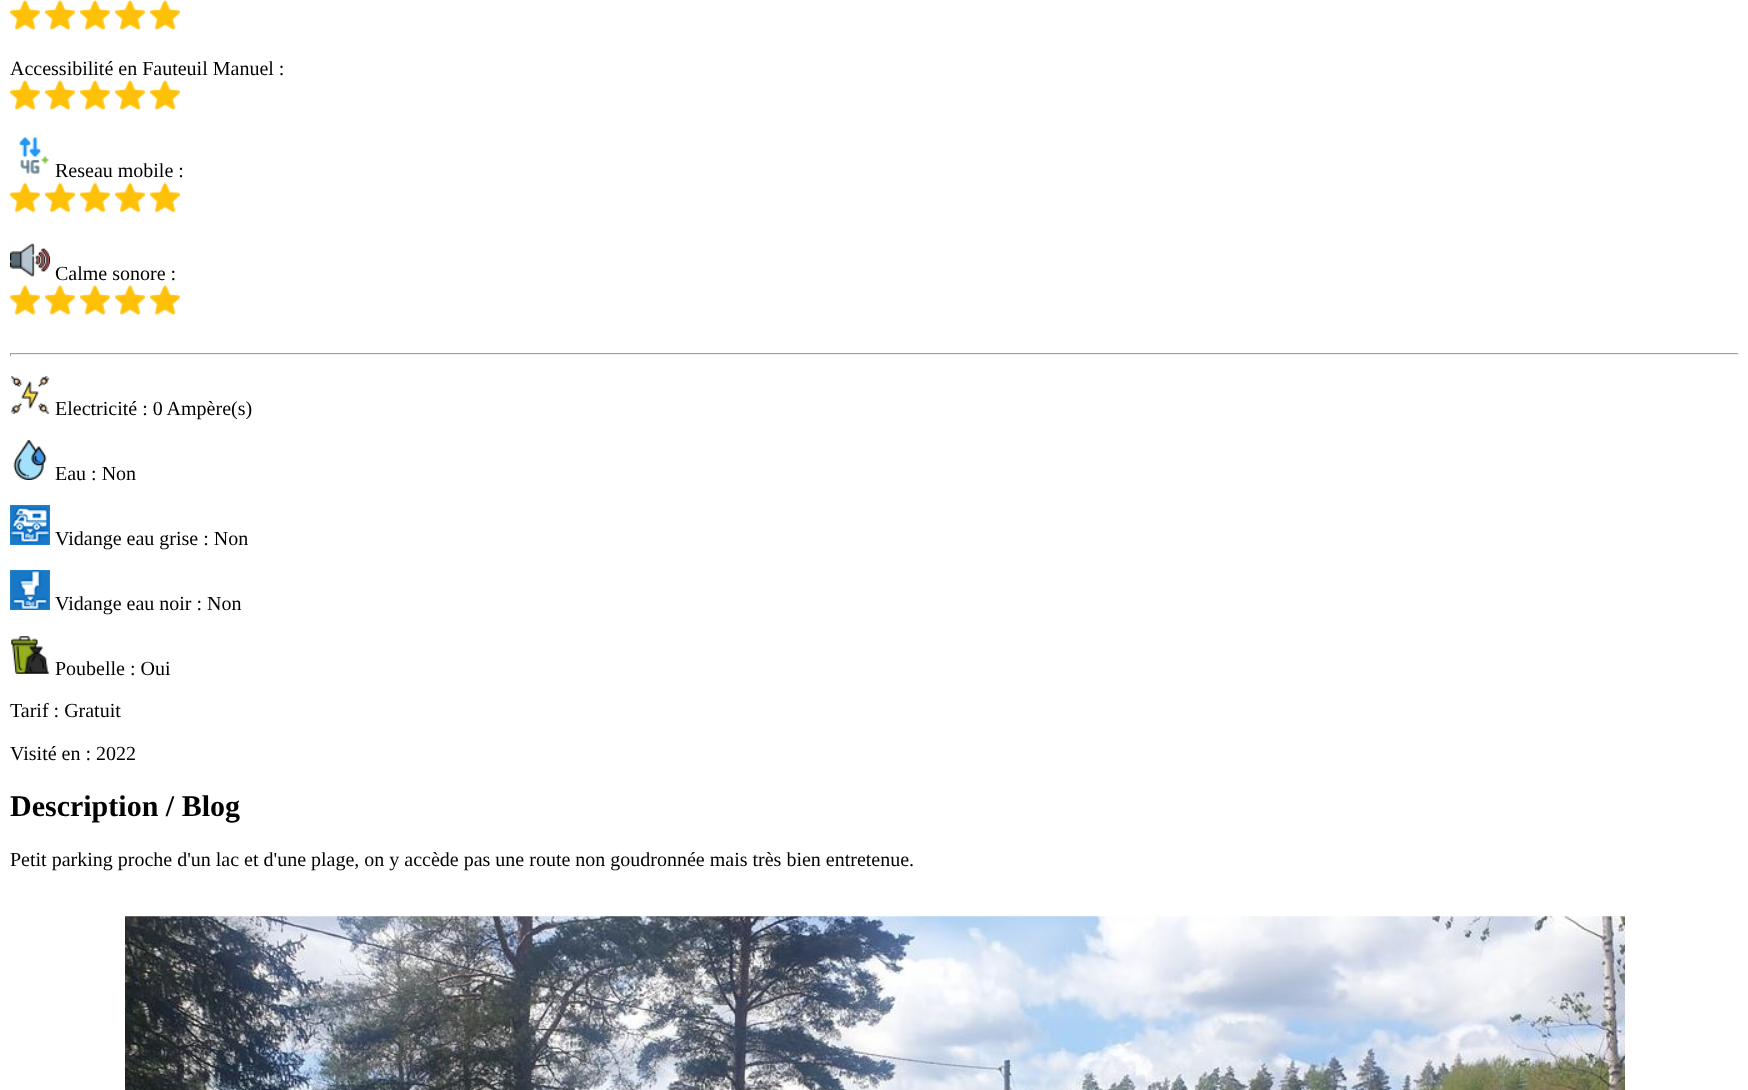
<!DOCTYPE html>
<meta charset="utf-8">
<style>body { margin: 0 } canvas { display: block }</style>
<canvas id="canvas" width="1748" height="1090"></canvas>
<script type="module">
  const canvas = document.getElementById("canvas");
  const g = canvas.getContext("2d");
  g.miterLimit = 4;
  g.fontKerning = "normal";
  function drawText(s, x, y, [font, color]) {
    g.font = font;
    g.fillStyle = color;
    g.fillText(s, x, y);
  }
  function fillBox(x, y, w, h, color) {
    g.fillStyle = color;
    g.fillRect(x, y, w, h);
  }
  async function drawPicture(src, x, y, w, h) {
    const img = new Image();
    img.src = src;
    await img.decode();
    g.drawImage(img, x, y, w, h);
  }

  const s1 = ["20px Liberation Serif", "#000000"];
  const s2 = ["bold 30px Liberation Serif", "#000000"];

  fillBox(0, 0, 1748, 1090, "#FFFFFF");
  await drawPicture("pic1.png", 10, 0, 30, 30);
  await drawPicture("pic1.png", 45, 0, 30, 30);
  await drawPicture("pic1.png", 80, 0, 30, 30);
  await drawPicture("pic1.png", 115, 0, 30, 30);
  await drawPicture("pic1.png", 150, 0, 30, 30);
  drawText("Accessibilité en Fauteuil Manuel :", 10, 75, s1);
  await drawPicture("pic1.png", 10, 80, 30, 30);
  await drawPicture("pic1.png", 45, 80, 30, 30);
  await drawPicture("pic1.png", 80, 80, 30, 30);
  await drawPicture("pic1.png", 115, 80, 30, 30);
  await drawPicture("pic1.png", 150, 80, 30, 30);
  await drawPicture("pic2.png", 18, 137, 31, 37);
  drawText("Reseau mobile :", 55, 177, s1);
  await drawPicture("pic3.png", 10, 182, 30, 31);
  await drawPicture("pic3.png", 45, 182, 30, 31);
  await drawPicture("pic3.png", 80, 182, 30, 31);
  await drawPicture("pic3.png", 115, 182, 30, 31);
  await drawPicture("pic3.png", 150, 182, 30, 31);
  await drawPicture("pic4.png", 10, 243, 40, 34);
  drawText("Calme sonore :", 55, 280, s1);
  await drawPicture("pic1.png", 10, 285, 30, 30);
  await drawPicture("pic1.png", 45, 285, 30, 30);
  await drawPicture("pic1.png", 80, 285, 30, 30);
  await drawPicture("pic1.png", 115, 285, 30, 30);
  await drawPicture("pic1.png", 150, 285, 30, 30);
  fillBox(10, 353, 1729, 1, "#9F9F9F");
  fillBox(1738, 353, 1, 3, "#EEEEEE");
  fillBox(10, 354, 1729, 1, "#EEEEEE");
  fillBox(10, 353, 1, 3, "#9F9F9F");
  await drawPicture("pic5.png", 11, 376, 38, 38);
  drawText("Electricité : 0 Ampère(s)", 55, 415, s1);
  await drawPicture("pic6.png", 13, 440, 34, 40);
  drawText("Eau : Non", 55, 480, s1);
  await drawPicture("pic7.png", 10, 505, 40, 40);
  drawText("Vidange eau grise : Non", 55, 545, s1);
  await drawPicture("pic8.png", 10, 570, 40, 40);
  drawText("Vidange eau noir : Non", 55, 610, s1);
  await drawPicture("pic9.png", 11, 636, 38, 38);
  drawText("Poubelle : Oui", 55, 675, s1);
  drawText("Tarif : Gratuit", 10, 717, s1);
  drawText("Visité en : 2022", 10, 760, s1);
  drawText("Description / Blog", 10, 816, s2);
  drawText("Petit parking proche d'un lac et d'une plage, on y accède pas une route non goudronnée mais très bien entretenue.", 10, 866, s1);
  await drawPicture("pic10.png", 125, 916, 1500, 174);
</script>
